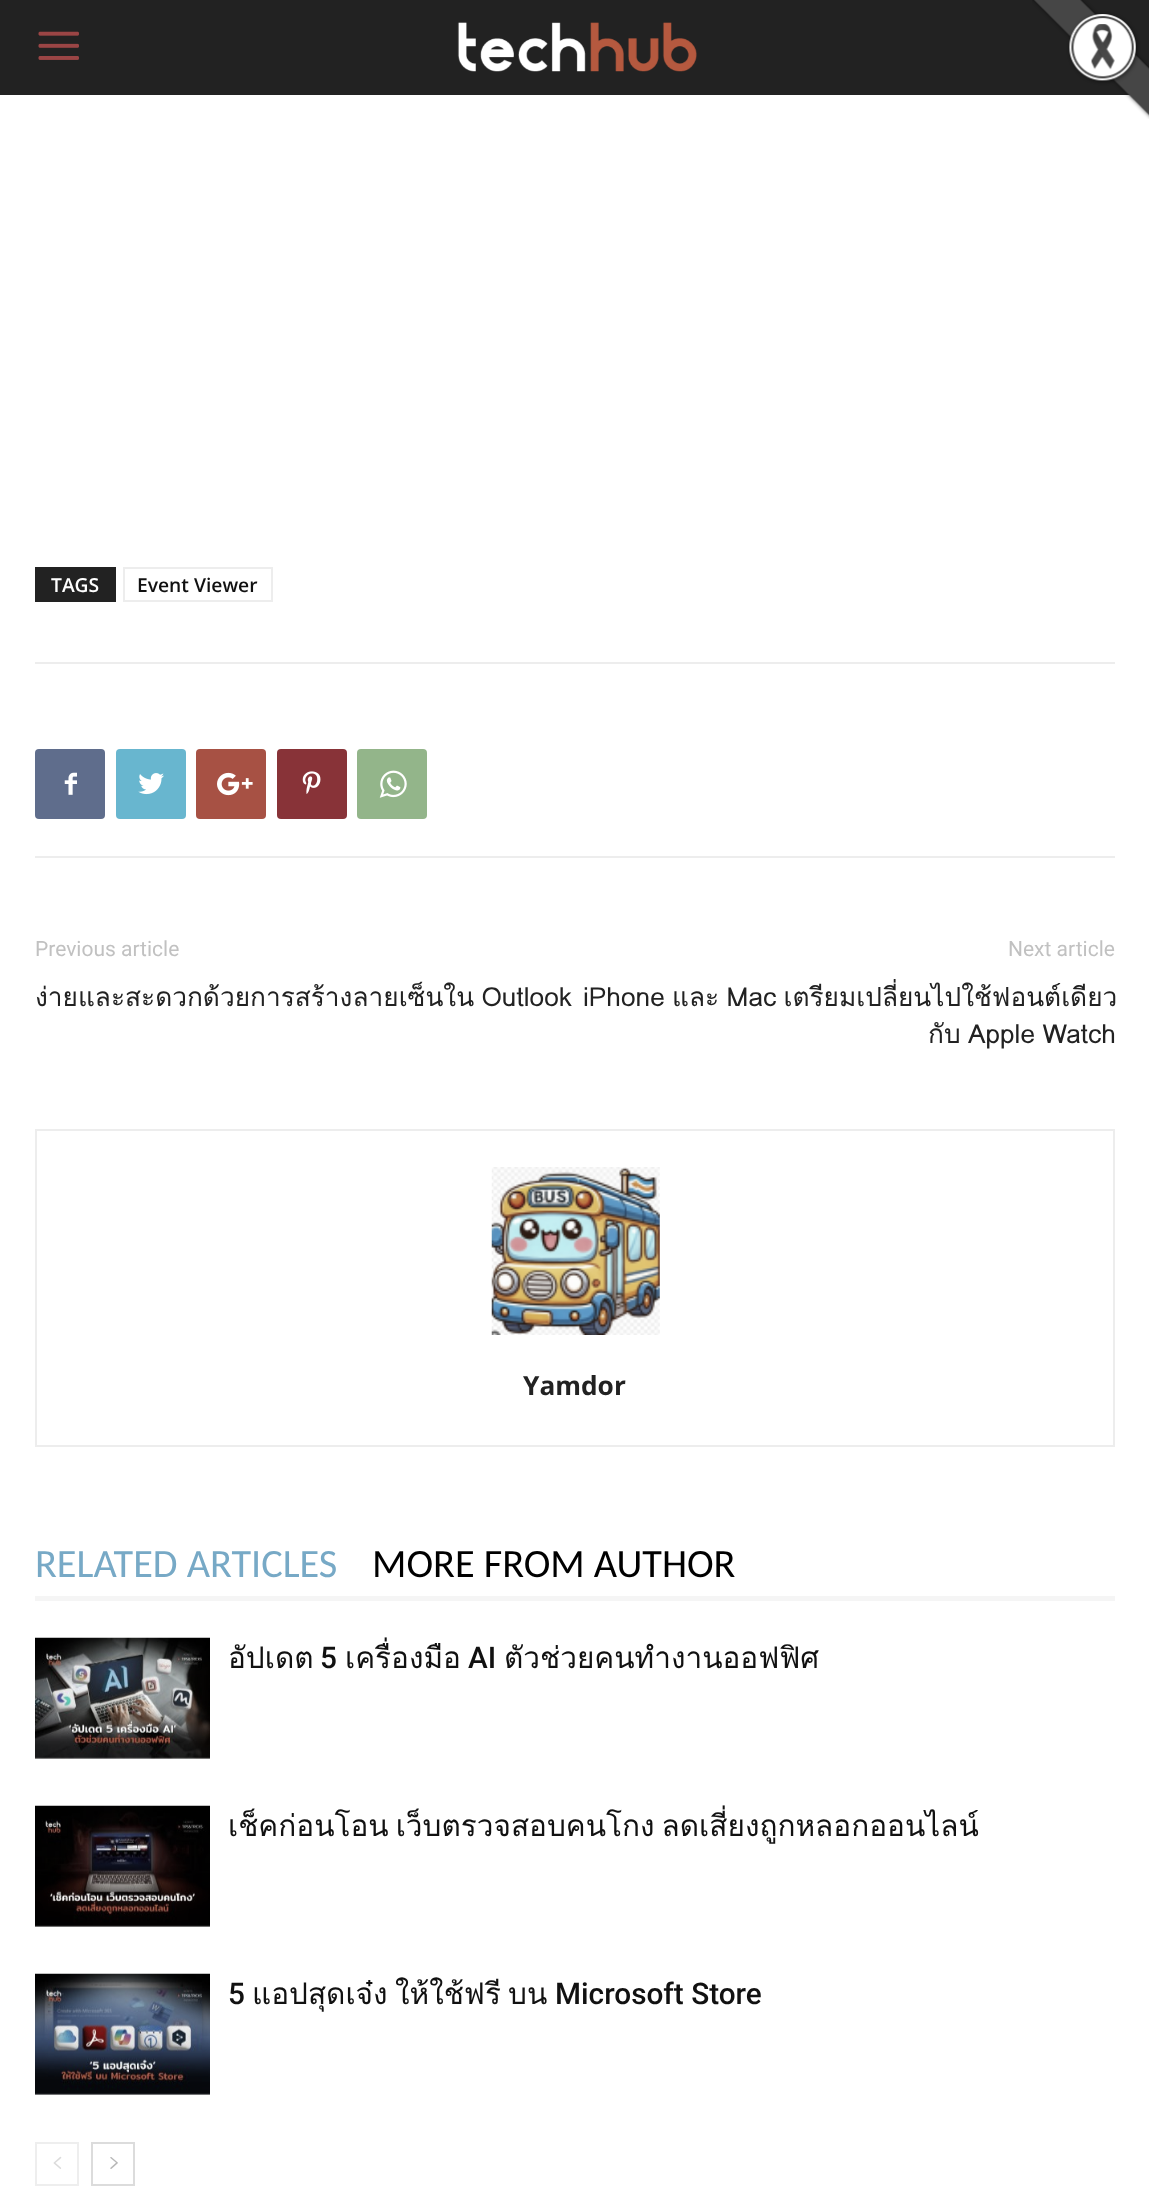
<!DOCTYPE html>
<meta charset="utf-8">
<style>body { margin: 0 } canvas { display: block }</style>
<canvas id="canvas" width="1149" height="2203"></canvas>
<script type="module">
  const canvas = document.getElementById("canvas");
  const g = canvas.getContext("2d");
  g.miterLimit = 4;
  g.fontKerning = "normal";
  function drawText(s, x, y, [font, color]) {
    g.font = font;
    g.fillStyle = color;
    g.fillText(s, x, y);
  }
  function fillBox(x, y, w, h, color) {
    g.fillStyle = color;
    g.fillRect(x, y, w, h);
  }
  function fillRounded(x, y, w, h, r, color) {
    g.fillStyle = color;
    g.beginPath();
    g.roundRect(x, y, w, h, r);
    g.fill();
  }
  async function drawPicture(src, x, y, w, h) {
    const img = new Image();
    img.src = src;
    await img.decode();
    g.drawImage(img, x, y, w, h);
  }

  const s1 = ["600 19.25px Open Sans", "#FFFFFF"];
  const s2 = ["600 19.25px Open Sans", "#111111"];
  const s3 = ["21px Roboto", "#C1C1C1"];
  const s4 = ["26.25px Loma", "#222222"];
  const s5 = ["bold 26.25px Open Sans", "#222222"];
  const s6 = ["40.25px Carlito", "#77A9C6"];
  const s7 = ["40.25px Carlito", "#000000"];
  const s8 = ["29.75px Loma", "#111111"];
  const s9 = ["500 29.75px Roboto", "#111111"];

  fillBox(0, 0, 1149, 2203, "#FFFFFF");
  fillBox(0, 0, 1149, 95, "#222222");
  await drawPicture("pic1.png", 1032, 0, 117, 119);
  await drawPicture("pic2.png", 38, 31, 41, 29);
  await drawPicture("pic3.png", 457, 22, 240, 50);
  fillBox(35, 567, 81, 35, "#222222");
  drawText("TAGS", 51, 592, s1);
  g.strokeStyle = "#EDEDED";
  g.lineWidth = 2;
  g.strokeRect(124, 568, 148, 33);
  drawText("Event Viewer", 137, 592, s2);
  fillBox(35, 662, 1080, 2, "#EDEDED");
  fillBox(35, 856, 1080, 2, "#EDEDED");
  fillRounded(35, 749, 70, 70, 4, "#5F6D8C");
  await drawPicture("pic4.png", 64, 772, 13, 23);
  fillRounded(116, 749, 70, 70, 4, "#68B6CF");
  await drawPicture("pic5.png", 138, 773, 26, 22);
  fillRounded(196, 749, 70, 70, 4, "#A75144");
  await drawPicture("pic6.png", 217, 772, 36, 24);
  fillRounded(277, 749, 70, 70, 4, "#883338");
  await drawPicture("pic7.png", 302, 771, 19, 23);
  fillRounded(357, 749, 70, 70, 4, "#93B58A");
  await drawPicture("pic8.png", 379, 770, 28, 28);
  drawText("Previous article", 35, 956, s3);
  g.wordSpacing = "-1.5px";
  drawText("ง่ายและสะดวกด้วยการสร้างลายเซ็นใน Outlook", 35, 1006, s4);
  g.wordSpacing = "0px";
  drawText("Next article", 1008, 956, s3);
  g.wordSpacing = "-1.5px";
  drawText("iPhone และ Mac เตรียมเปลี่ยนไปใช้ฟอนต์เดียว", 583, 1006, s4);
  drawText("กับ Apple Watch", 928, 1043, s4);
  g.strokeRect(36, 1130, 1078, 316);
  await drawPicture("pic9.png", 491, 1167, 169, 168);
  g.wordSpacing = "0px";
  drawText("Yamdor", 523, 1395, s5);
  drawText("RELATED ARTICLES", 35, 1577, s6);
  drawText("MORE FROM AUTHOR", 372, 1577, s7);
  fillBox(35, 1596, 1080, 5, "#F5F5F5");
  await drawPicture("pic10.png", 35, 1637, 175, 122);
  drawText("อัปเดต", 228, 1668, s8);
  drawText("5", 320, 1668, s9);
  drawText("เครื่องมือ", 345, 1668, s8);
  drawText("AI", 468, 1668, s9);
  drawText("ตัวช่วยคนทำงานออฟฟิศ", 504, 1668, s8);
  await drawPicture("pic11.png", 35, 1805, 175, 122);
  g.wordSpacing = "-3px";
  drawText("เช็คก่อนโอน เว็บตรวจสอบคนโกง ลดเสี่ยงถูกหลอกออนไลน์", 228, 1836, s8);
  await drawPicture("pic12.png", 35, 1973, 175, 122);
  g.wordSpacing = "0px";
  drawText("5", 228, 2004, s9);
  drawText("แอปสุดเจ๋ง", 252, 2004, s8);
  drawText("ให้ใช้ฟรี", 395, 2004, s8);
  drawText("บน", 508, 2004, s8);
  drawText("Microsoft Store", 555, 2004, s9);
  g.strokeStyle = "#EEEEEE";
  g.strokeRect(36, 2143, 42, 42);
  await drawPicture("pic13.png", 53, 2156, 9, 13);
  g.strokeStyle = "#DCDCDC";
  g.strokeRect(92, 2143, 42, 42);
  await drawPicture("pic14.png", 110, 2157, 8, 12);
</script>
